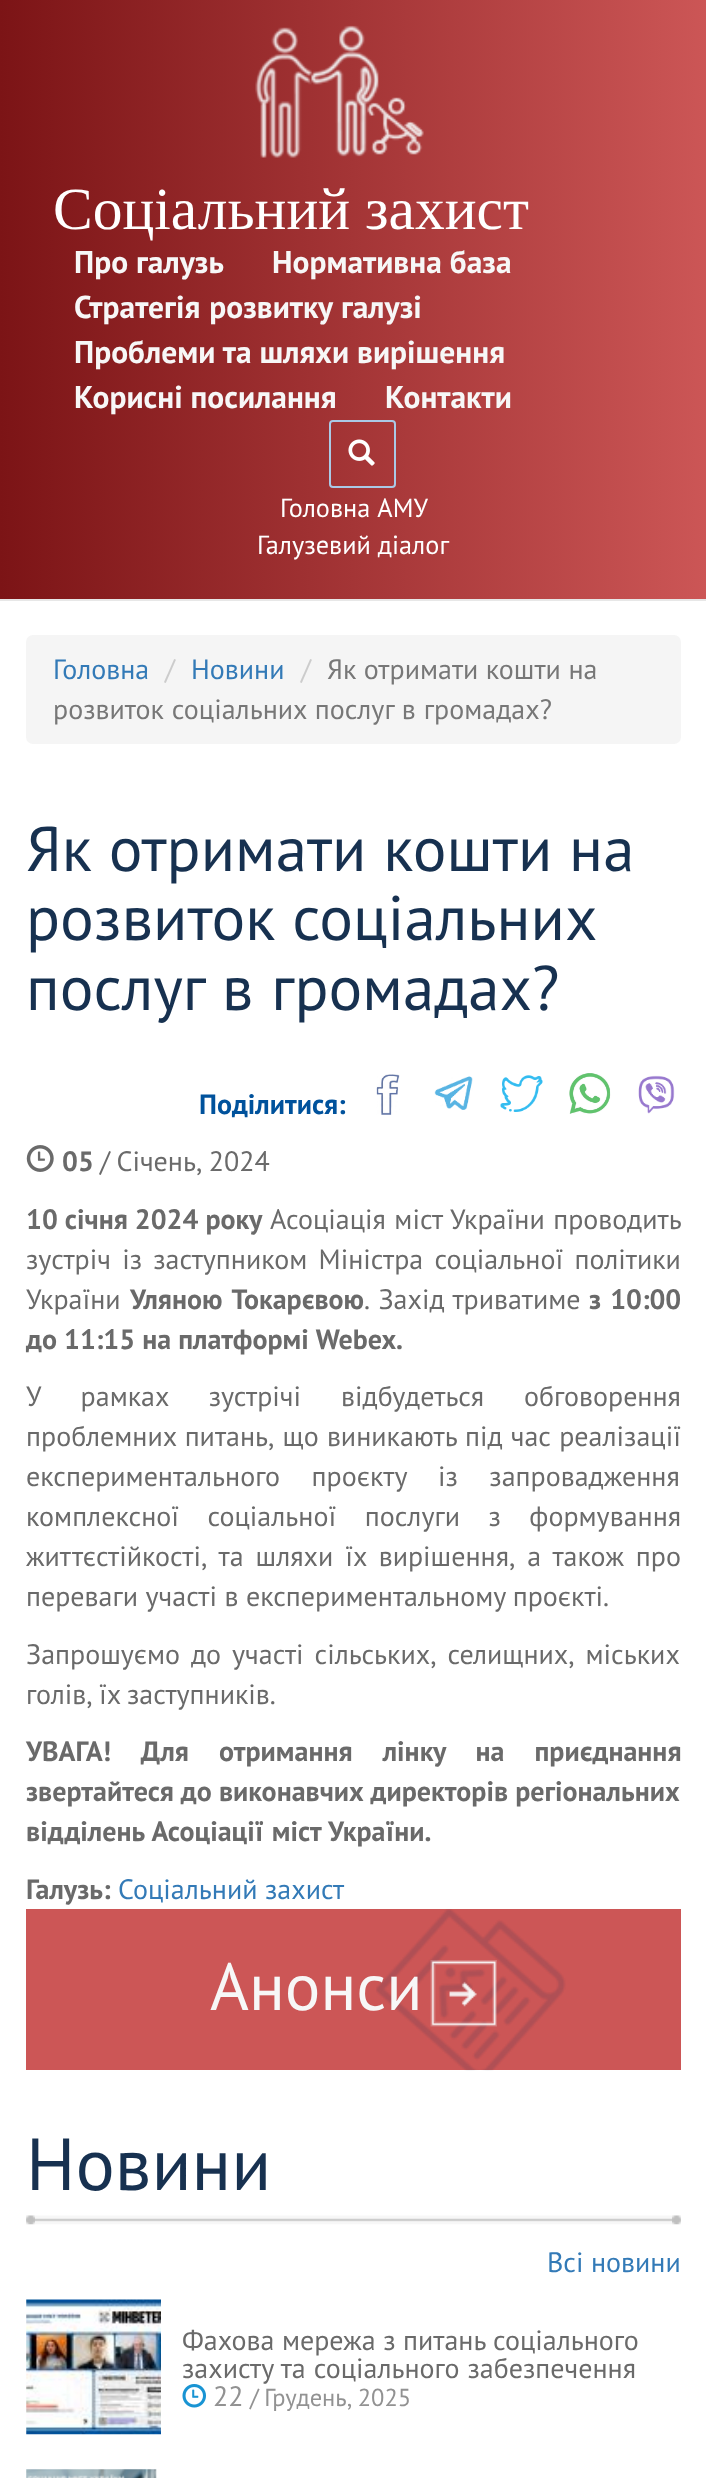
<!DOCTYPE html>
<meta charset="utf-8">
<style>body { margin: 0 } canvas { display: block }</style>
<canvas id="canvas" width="706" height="2478"></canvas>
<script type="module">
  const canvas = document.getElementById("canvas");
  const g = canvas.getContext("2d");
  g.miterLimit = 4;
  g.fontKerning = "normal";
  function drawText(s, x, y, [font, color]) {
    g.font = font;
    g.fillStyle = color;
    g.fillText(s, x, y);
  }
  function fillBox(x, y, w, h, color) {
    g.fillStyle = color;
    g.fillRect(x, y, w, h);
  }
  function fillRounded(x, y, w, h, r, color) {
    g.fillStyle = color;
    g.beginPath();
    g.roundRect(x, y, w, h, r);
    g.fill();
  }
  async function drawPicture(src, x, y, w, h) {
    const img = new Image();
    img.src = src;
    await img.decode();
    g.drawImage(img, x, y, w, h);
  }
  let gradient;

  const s1 = ["59.5px Liberation Serif", "#FFFFFF"];
  const s2 = ["bold 31.5px PT Sans", "#F7F7F7"];
  const s3 = ["26.25px PT Sans", "#FFFFFF"];
  const s4 = ["28px PT Sans", "#337AB7"];
  const s5 = ["28px PT Sans", "#CCCCCC"];
  const s6 = ["28px PT Sans", "#777777"];
  const s7 = ["63px PT Sans", "#173150"];
  const s8 = ["bold 28px PT Sans", "#00529C"];
  const s9 = ["bold 28px PT Sans", "#6A6A6A"];
  const s10 = ["28px PT Sans", "#6A6A6A"];
  const s11 = ["66.5px PT Sans", "#F7F7F7"];
  const s12 = ["73.5px PT Sans", "#173150"];
  const s13 = ["28px PT Sans", "#929292"];
  const s14 = ["24.5px PT Sans", "#929292"];

  fillBox(0, 0, 706, 2478, "#FFFFFF");
  gradient = g.createLinearGradient(0, 299, 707, 299);
  gradient.addColorStop(0, "#7C1416");
  gradient.addColorStop(1, "#CC5656");
  g.fillStyle = gradient;
  g.fillRect(0, 0, 706, 599);
  fillBox(0, 599, 706, 2, "#E7E7E7");
  await drawPicture("pic1.png", 255, 25, 169, 133);
  drawText("Соціальний захист", 53, 229, s1);
  drawText("Про галузь", 74, 273, s2);
  drawText("Нормативна база", 272, 273, s2);
  g.wordSpacing = "1px";
  drawText("Стратегія розвитку галузі", 74, 318, s2);
  g.wordSpacing = "0px";
  drawText("Проблеми та шляхи вирішення", 74, 363, s2);
  drawText("Корисні посилання", 74, 408, s2);
  drawText("Контакти", 385, 408, s2);
  g.beginPath();
  g.roundRect(330, 421, 65, 66, 3);
  g.strokeStyle = "#AAC9E6";
  g.lineWidth = 2;
  g.stroke();
  await drawPicture("pic2.png", 348, 439, 27, 27);
  g.wordSpacing = "1px";
  drawText("Головна АМУ", 280, 517, s3);
  g.wordSpacing = "0px";
  drawText("Галузевий діалог", 257, 554, s3);
  fillRounded(26, 635, 655, 109, 7, "#F5F5F5");
  drawText("Головна", 53, 679, s4);
  drawText("/", 165, 679, s5);
  drawText("Новини", 191, 679, s4);
  drawText("/", 301, 679, s5);
  drawText("Як отримати кошти на", 327, 679, s6);
  g.wordSpacing = "0.5px";
  drawText("розвиток соціальних послуг в громадах?", 53, 719, s6);
  g.wordSpacing = "0px";
  drawText("Як отримати кошти на", 26, 871, s7);
  drawText("розвиток соціальних", 26, 940, s7);
  g.wordSpacing = "1px";
  drawText("послуг в громадах?", 26, 1010, s7);
  g.wordSpacing = "0px";
  drawText("Поділитися:", 199, 1114, s8);
  await drawPicture("pic3.png", 376, 1074, 24, 41);
  await drawPicture("pic4.png", 434, 1076, 39, 34);
  await drawPicture("pic5.png", 500, 1075, 43, 37);
  await drawPicture("pic6.png", 569, 1073, 42, 41);
  await drawPicture("pic7.png", 638, 1075, 37, 39);
  await drawPicture("pic8.png", 26, 1145, 28, 27);
  drawText("05", 62, 1171, s9);
  g.wordSpacing = "-1px";
  drawText("/ Січень, 2024", 100, 1171, s10);
  g.wordSpacing = "0px";
  drawText("10 січня 2024 року", 26, 1229, s9);
  g.wordSpacing = "1px";
  drawText("Асоціація міст України проводить", 270, 1229, s10);
  g.wordSpacing = "3.75px";
  drawText("зустріч із заступником Міністра соціальної політики", 26, 1269, s10);
  g.wordSpacing = "0px";
  drawText("України", 26, 1309, s10);
  g.wordSpacing = "3px";
  drawText("Уляною Токарєвою", 130, 1309, s9);
  g.wordSpacing = "1px";
  drawText(". Захід триватиме", 364, 1309, s10);
  g.wordSpacing = "2px";
  drawText("з 10:00", 589, 1309, s9);
  g.wordSpacing = "0px";
  drawText("до 11:15 на платформі Webex.", 26, 1349, s9);
  g.wordSpacing = "32.5px";
  drawText("У рамках зустрічі відбудеться обговорення", 26, 1406, s10);
  g.wordSpacing = "0.75px";
  drawText("проблемних питань, що виникають під час реалізації", 26, 1446, s10);
  g.wordSpacing = "24px";
  drawText("експериментального проєкту із запровадження", 26, 1486, s10);
  g.wordSpacing = "21px";
  drawText("комплексної соціальної послуги з формування", 26, 1526, s10);
  g.wordSpacing = "4.5px";
  drawText("життєстійкості, та шляхи їх вирішення, а також про", 26, 1566, s10);
  g.wordSpacing = "0px";
  drawText("переваги участі в експериментальному проєкті.", 26, 1606, s10);
  g.wordSpacing = "3.5px";
  drawText("Запрошуємо до участі сільських, селищних, міських", 26, 1664, s10);
  g.wordSpacing = "-1px";
  drawText("голів, їх заступників.", 26, 1704, s10);
  g.wordSpacing = "23px";
  drawText("УВАГА! Для отримання лінку на приєднання", 26, 1761, s9);
  g.wordSpacing = "0px";
  drawText("звертайтеся до виконавчих директорів регіональних", 26, 1801, s9);
  g.wordSpacing = "1px";
  drawText("відділень Асоціації міст України.", 26, 1841, s9);
  g.wordSpacing = "0px";
  drawText("Галузь:", 26, 1899, s9);
  drawText("Соціальний захист", 118, 1899, s4);
  fillBox(26, 1909, 655, 161, "#CC5656");
  await drawPicture("pic9.png", 376, 1909, 190, 162);
  drawText("Анонси", 210, 2010, s11);
  await drawPicture("pic10.png", 430, 1960, 67, 67);
  drawText("Новини", 26, 2190, s12);
  await drawPicture("pic11.png", 26, 2215, 655, 10);
  drawText("Всі новини", 547, 2272, s4);
  await drawPicture("pic12.png", 26, 2299, 135, 136);
  drawText("Фахова мережа з питань соціального", 182, 2350, s10);
  g.wordSpacing = "0.5px";
  drawText("захисту та соціального забезпечення", 182, 2378, s10);
  await drawPicture("pic13.png", 182, 2384, 24, 24);
  g.wordSpacing = "0px";
  drawText("22", 213, 2406, s13);
  g.wordSpacing = "-1px";
  drawText("/ Грудень, 2025", 250, 2406, s14);
  await drawPicture("pic14.png", 26, 2469, 131, 9);
</script>
